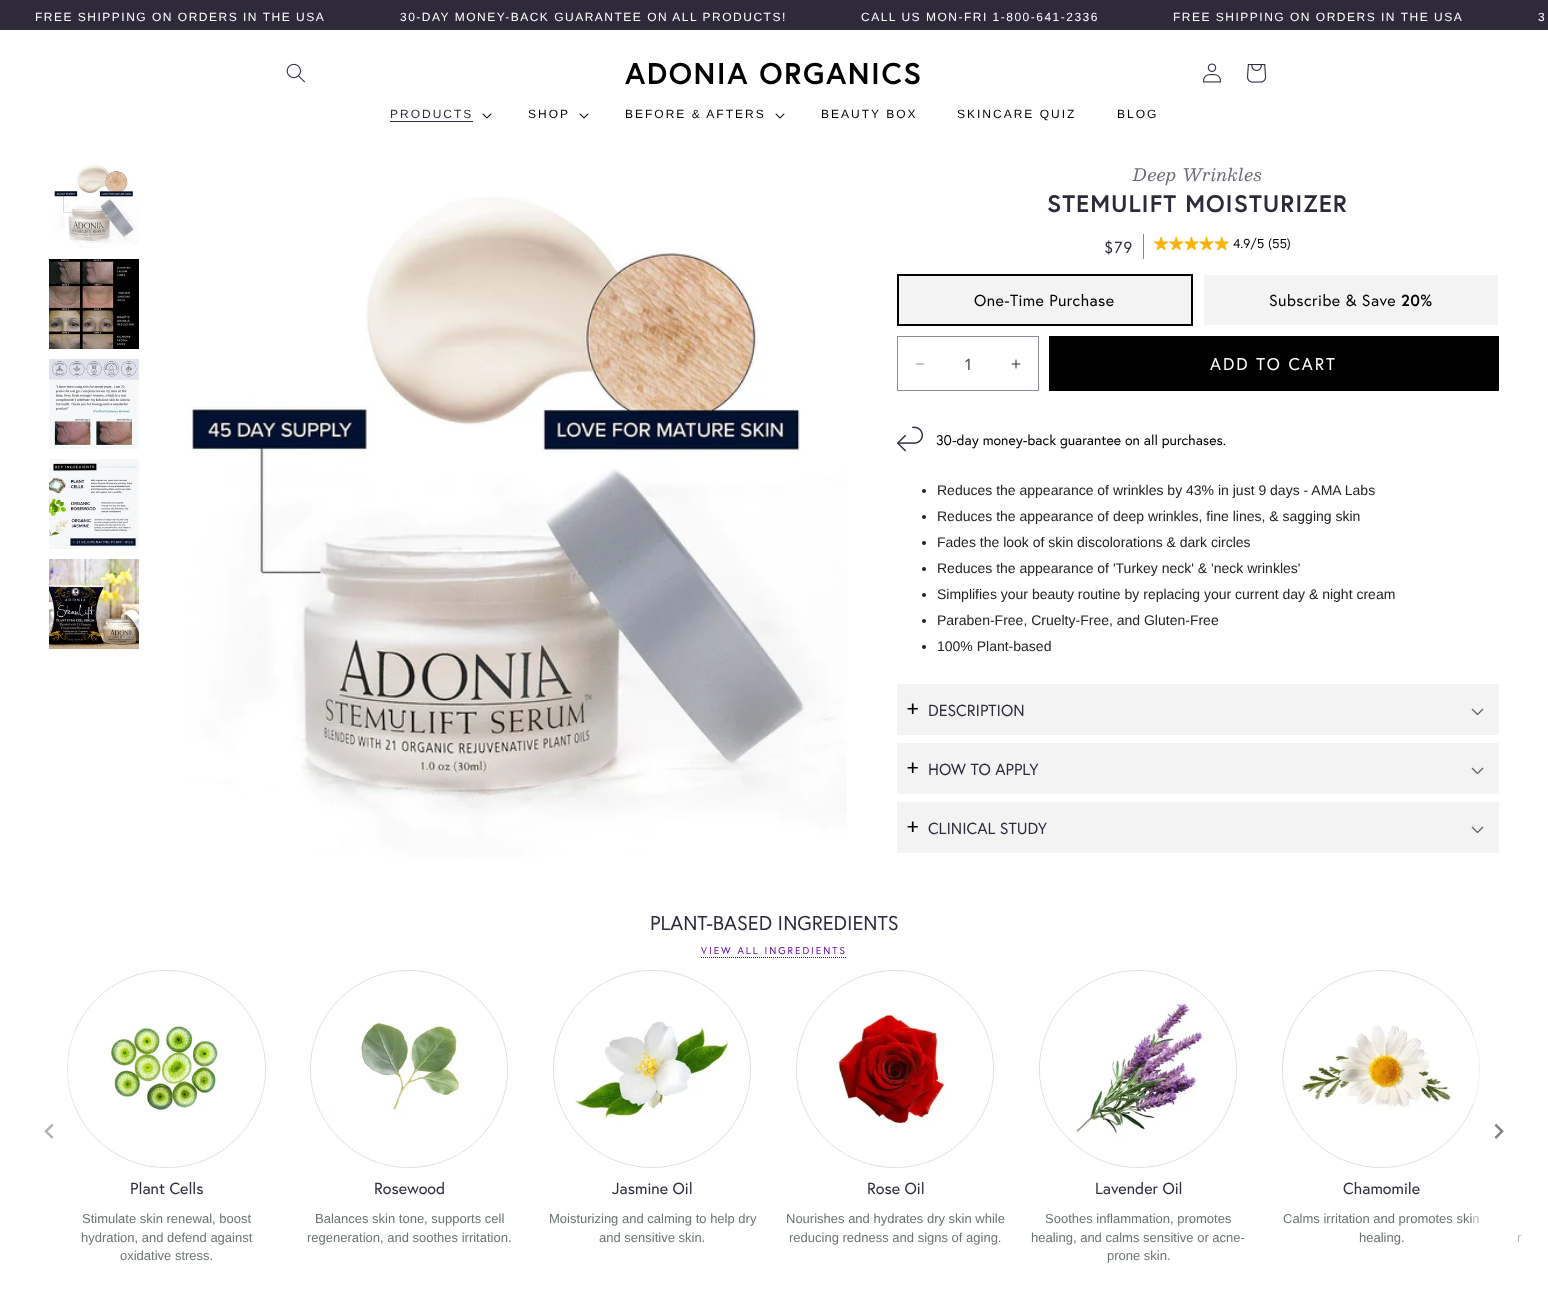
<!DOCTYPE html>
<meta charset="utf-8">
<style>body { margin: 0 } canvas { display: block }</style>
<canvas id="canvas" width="1548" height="1292"></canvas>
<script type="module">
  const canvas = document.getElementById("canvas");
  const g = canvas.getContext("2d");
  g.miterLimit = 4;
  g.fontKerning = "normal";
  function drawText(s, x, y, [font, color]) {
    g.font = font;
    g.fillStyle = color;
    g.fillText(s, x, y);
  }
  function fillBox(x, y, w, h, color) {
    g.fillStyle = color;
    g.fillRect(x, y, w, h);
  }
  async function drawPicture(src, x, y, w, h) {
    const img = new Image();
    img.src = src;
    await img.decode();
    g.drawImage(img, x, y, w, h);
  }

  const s1 = ["12px Liberation Sans", "#FFFFFF"];
  const s2 = ["bold 30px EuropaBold", "#000000"];
  const s3 = ["12px Liberation Sans", "#2E2A39"];
  const s4 = ["12px Liberation Sans", "#000000"];
  const s5 = ["italic 17px Besley", "#6D6A74"];
  const s6 = ["bold 24px EuropaBold", "#2E2A39"];
  const s7 = ["16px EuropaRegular", "#2E2A39"];
  const s8 = ["13px EuropaRegular", "#000000"];
  const s9 = ["16px EuropaRegular", "#000000"];
  const s10 = ["bold 16px EuropaBold", "#000000"];
  const s11 = ["16px EuropaRegular", "#4D4A57"];
  const s12 = ["17px EuropaRegular", "#FFFFFF"];
  const s13 = ["14px EuropaRegular", "#000000"];
  const s14 = ["14px Liberation Sans", "#222222"];
  const s15 = ["22px EuropaRegular", "#000000"];
  const s16 = ["20px EuropaRegular", "#2E2A39"];
  const s17 = ["10px EuropaRegular", "#6A0DAD"];
  const s18 = ["13px Liberation Sans", "#6A7373"];

  fillBox(0, 0, 1548, 1292, "#FFFFFF");
  fillBox(0, 0, 1548, 30, "#2E2A39");
  g.letterSpacing = "1.5px";
  drawText("FREE SHIPPING ON ORDERS IN THE USA", 35, 21, s1);
  drawText("30-DAY MONEY-BACK GUARANTEE ON ALL PRODUCTS!", 400, 21, s1);
  drawText("CALL US MON-FRI 1-800-641-2336", 861, 21, s1);
  drawText("FREE SHIPPING ON ORDERS IN THE USA", 1173, 21, s1);
  drawText("3", 1538, 21, s1);
  await drawPicture("pic1.png", 286, 63, 19, 20);
  drawText("ADONIA ORGANICS", 625, 84, s2);
  await drawPicture("pic2.png", 1203, 63, 18, 20);
  await drawPicture("pic3.png", 1247, 64, 20, 19);
  g.letterSpacing = "2px";
  drawText("PRODUCTS", 390, 118, s3);
  fillBox(390, 121, 83, 1, "#2E2A39");
  await drawPicture("pic4.png", 482, 113, 10, 6);
  drawText("SHOP", 528, 118, s4);
  await drawPicture("pic4.png", 579, 113, 10, 6);
  drawText("BEFORE & AFTERS", 625, 118, s4);
  await drawPicture("pic4.png", 775, 113, 10, 6);
  drawText("BEAUTY BOX", 821, 118, s4);
  drawText("SKINCARE QUIZ", 957, 118, s4);
  drawText("BLOG", 1117, 118, s4);
  await drawPicture("pic5.png", 54, 164, 85, 84);
  await drawPicture("pic6.png", 49, 259, 90, 90);
  await drawPicture("pic7.png", 49, 359, 90, 90);
  await drawPicture("pic8.png", 49, 459, 90, 90);
  await drawPicture("pic9.png", 49, 559, 90, 90);
  await drawPicture("pic10.png", 187, 196, 660, 661);
  g.letterSpacing = "0.6px";
  drawText("Deep Wrinkles", 1133, 181, s5);
  g.letterSpacing = "1px";
  drawText("STEMULIFT MOISTURIZER", 1047, 212, s6);
  drawText("$79", 1104, 253, s7);
  fillBox(1143, 234, 1, 25, "#888888");
  await drawPicture("pic11.png", 1154, 236, 75, 15);
  await drawPicture("pic12.png", 1154, 236, 74, 15);
  g.letterSpacing = "0px";
  drawText("4.9/5 (55)", 1233, 248, s8);
  g.fillStyle = "#F3F3F3";
  g.beginPath();
  g.rect(898, 275, 294, 50);
  g.fill();
  g.strokeStyle = "#000000";
  g.lineWidth = 2;
  g.stroke();
  g.letterSpacing = "0.4px";
  drawText("One-Time Purchase", 974, 306, s9);
  fillBox(1204, 275, 294, 50, "#F3F3F3");
  drawText("Subscribe & Save", 1269, 306, s9);
  drawText("20%", 1401, 306, s10);
  await drawPicture("pic13.png", 915, 363, 10, 2);
  await drawPicture("pic14.png", 1011, 359, 10, 10);
  g.strokeStyle = "#8C8A92";
  g.lineWidth = 1;
  g.strokeRect(897.5, 336.5, 141, 54);
  g.letterSpacing = "0px";
  drawText("1", 965, 370, s11);
  fillBox(1049, 336, 450, 55, "#000000");
  g.letterSpacing = "2px";
  drawText("ADD TO CART", 1210, 370, s12);
  await drawPicture("pic15.png", 897, 426, 26, 26);
  g.letterSpacing = "0px";
  drawText("30-day money-back guarantee on all purchases.", 936, 445, s13);
  g.fillStyle = "#222222";
  g.beginPath();
  g.arc(924, 491, 2, 0, Math.PI * 2);
  g.fill();
  drawText("Reduces the appearance of wrinkles by 43% in just 9 days - AMA Labs", 937, 495, s14);
  g.beginPath();
  g.arc(924, 517, 2, 0, Math.PI * 2);
  g.fill();
  drawText("Reduces the appearance of deep wrinkles, fine lines, & sagging skin", 937, 521, s14);
  g.beginPath();
  g.arc(924, 543, 2, 0, Math.PI * 2);
  g.fill();
  drawText("Fades the look of skin discolorations & dark circles", 937, 547, s14);
  g.beginPath();
  g.arc(924, 569, 2, 0, Math.PI * 2);
  g.fill();
  drawText("Reduces the appearance of 'Turkey neck' & 'neck wrinkles'", 937, 573, s14);
  g.beginPath();
  g.arc(924, 595, 2, 0, Math.PI * 2);
  g.fill();
  drawText("Simplifies your beauty routine by replacing your current day & night cream", 937, 599, s14);
  g.beginPath();
  g.arc(924, 621, 2, 0, Math.PI * 2);
  g.fill();
  drawText("Paraben-Free, Cruelty-Free, and Gluten-Free", 937, 625, s14);
  g.beginPath();
  g.arc(924, 647, 2, 0, Math.PI * 2);
  g.fill();
  drawText("100% Plant-based", 937, 651, s14);
  fillBox(897, 684, 602, 51, "#F3F3F3");
  drawText("+", 907, 714, s15);
  drawText("DESCRIPTION", 928, 716, s7);
  await drawPicture("pic16.png", 1471, 708, 13, 8);
  fillBox(897, 743, 602, 51, "#F3F3F3");
  drawText("+", 907, 773, s15);
  drawText("HOW TO APPLY", 928, 775, s7);
  await drawPicture("pic16.png", 1471, 767, 13, 8);
  fillBox(897, 802, 602, 51, "#F3F3F3");
  drawText("+", 907, 832, s15);
  drawText("CLINICAL STUDY", 928, 834, s7);
  await drawPicture("pic16.png", 1471, 826, 13, 8);
  drawText("PLANT-BASED INGREDIENTS", 650, 930, s16);
  g.beginPath();
  g.moveTo(701, 957.5);
  g.lineTo(847, 957.5);
  g.strokeStyle = "#4B0082";
  g.setLineDash([1, 1]);
  g.stroke();
  g.letterSpacing = "2px";
  drawText("VIEW ALL INGREDIENTS", 701, 954, s17);
  g.beginPath();
  g.roundRect(67.5, 970.5, 198, 197, 98.5);
  g.strokeStyle = "#DDDDDD";
  g.setLineDash([]);
  g.stroke();
  await drawPicture("pic19.png", 68, 971, 197, 196);
  fillBox(67, 1031, 8, 76, "rgba(255, 255, 255, 0.3)");
  await drawPicture("pic17.png", 44, 1124, 10, 15);
  g.beginPath();
  g.arc(1381, 1069, 98.5, 0, Math.PI * 2);
  g.stroke();
  await drawPicture("pic24.png", 1283, 971, 196, 196);
  g.letterSpacing = "0px";
  drawText("Calms irritation and promotes skin", 1283, 1223, s18);
  drawText("r", 1517, 1242, s18);
  fillBox(1473, 1033, 48, 209, "rgba(255, 255, 255, 0.5)");
  await drawPicture("pic18.png", 1494, 1123, 10, 16);
  drawText("Plant Cells", 130, 1194, s7);
  drawText("Stimulate skin renewal, boost", 82, 1223, s18);
  drawText("hydration, and defend against", 81, 1242, s18);
  drawText("oxidative stress.", 120, 1260, s18);
  g.beginPath();
  g.arc(409, 1069, 98.5, 0, Math.PI * 2);
  g.stroke();
  await drawPicture("pic20.png", 311, 971, 196, 196);
  drawText("Rosewood", 374, 1194, s7);
  drawText("Balances skin tone, supports cell", 315, 1223, s18);
  drawText("regeneration, and soothes irritation.", 307, 1242, s18);
  g.beginPath();
  g.arc(652, 1069, 98.5, 0, Math.PI * 2);
  g.stroke();
  await drawPicture("pic21.png", 554, 971, 196, 196);
  drawText("Jasmine Oil", 612, 1194, s7);
  drawText("Moisturizing and calming to help dry", 549, 1223, s18);
  drawText("and sensitive skin.", 599, 1242, s18);
  g.beginPath();
  g.arc(895, 1069, 98.5, 0, Math.PI * 2);
  g.stroke();
  await drawPicture("pic22.png", 797, 971, 196, 196);
  drawText("Rose Oil", 867, 1194, s7);
  drawText("Nourishes and hydrates dry skin while", 786, 1223, s18);
  drawText("reducing redness and signs of aging.", 789, 1242, s18);
  g.beginPath();
  g.arc(1138, 1069, 98.5, 0, Math.PI * 2);
  g.stroke();
  await drawPicture("pic23.png", 1040, 971, 196, 196);
  drawText("Lavender Oil", 1095, 1194, s7);
  drawText("Soothes inflammation, promotes", 1045, 1223, s18);
  drawText("healing, and calms sensitive or acne-", 1031, 1242, s18);
  drawText("prone skin.", 1107, 1260, s18);
  drawText("Chamomile", 1343, 1194, s7);
  drawText("healing.", 1359, 1242, s18);
</script>
